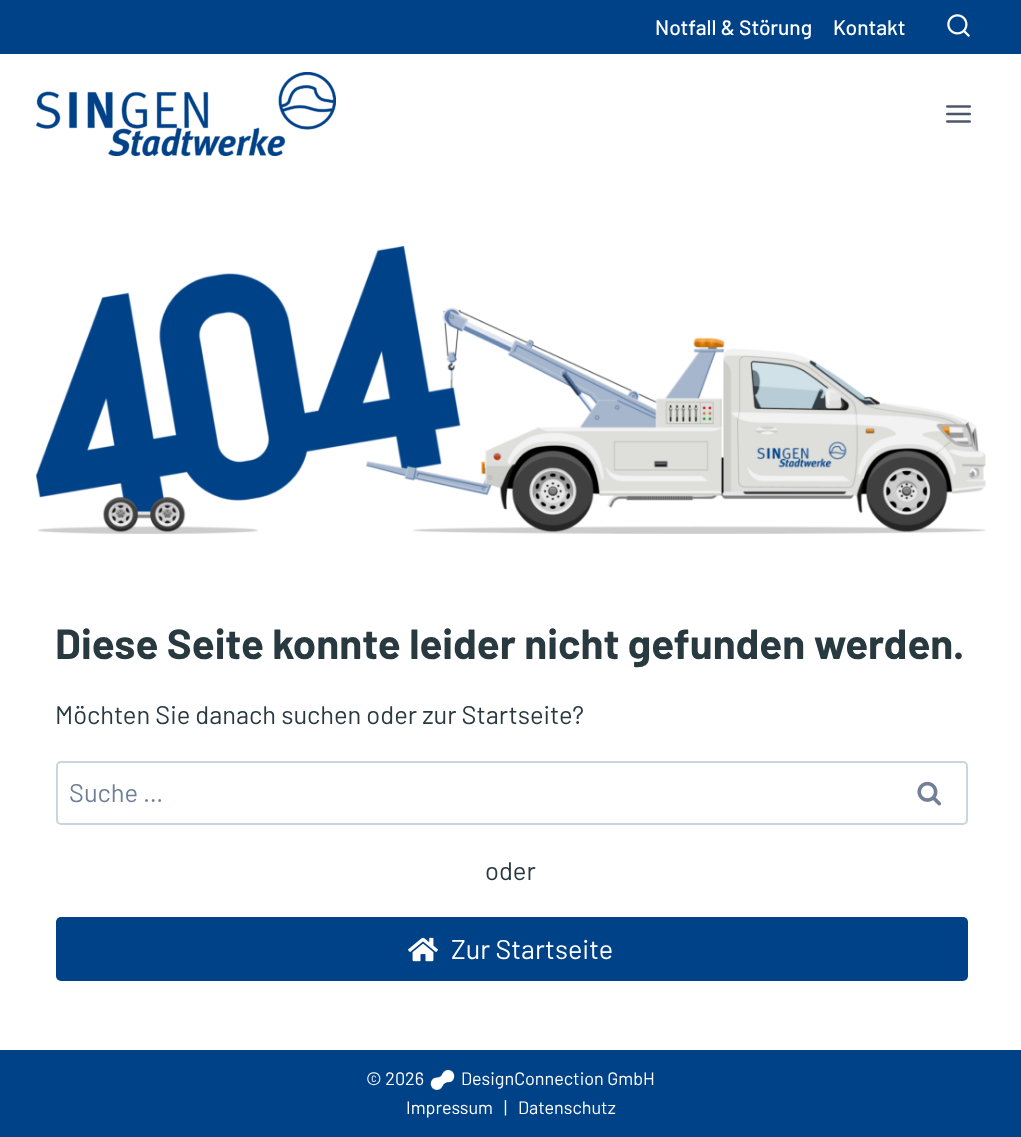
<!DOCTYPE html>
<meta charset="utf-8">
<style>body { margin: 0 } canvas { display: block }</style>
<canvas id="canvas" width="1021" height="1137"></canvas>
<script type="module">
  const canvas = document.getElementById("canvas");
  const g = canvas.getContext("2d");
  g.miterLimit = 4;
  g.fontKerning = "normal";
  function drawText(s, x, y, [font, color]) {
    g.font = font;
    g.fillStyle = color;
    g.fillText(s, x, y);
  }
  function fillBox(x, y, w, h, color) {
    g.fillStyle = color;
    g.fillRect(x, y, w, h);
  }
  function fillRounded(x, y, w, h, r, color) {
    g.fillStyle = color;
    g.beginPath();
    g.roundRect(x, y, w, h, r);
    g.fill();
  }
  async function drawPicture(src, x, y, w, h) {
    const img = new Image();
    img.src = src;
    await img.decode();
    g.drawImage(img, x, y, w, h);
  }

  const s1 = ["500 21px Barlow", "#FFFFFF"];
  const s2 = ["bold 42px Barlow", "#283940"];
  const s3 = ["25.5px Barlow", "#283940"];
  const s4 = ["25.5px Barlow", "#718096"];
  const s5 = ["27px Barlow", "#FFFFFF"];
  const s6 = ["18px Barlow", "#FFFFFF"];

  fillBox(0, 0, 1021, 1137, "#FFFFFF");
  fillBox(0, 0, 1021, 54, "#004288");
  drawText("Notfall & Störung", 655, 35, s1);
  drawText("Kontakt", 833, 35, s1);
  await drawPicture("pic1.png", 947, 14, 23, 23);
  await drawPicture("pic2.png", 36, 72, 300, 84);
  await drawPicture("pic3.png", 946, 105, 25, 18);
  await drawPicture("pic4.png", 36, 246, 950, 288);
  drawText("Diese Seite konnte leider nicht gefunden werden.", 55, 659, s2);
  drawText("Möchten Sie danach suchen oder zur Startseite?", 55, 724, s3);
  g.beginPath();
  g.roundRect(57, 762, 910, 62, 4);
  g.strokeStyle = "#CBD5E0";
  g.lineWidth = 2;
  g.stroke();
  drawText("Suche …", 69, 802, s4);
  await drawPicture("pic5.png", 917, 781, 25, 25);
  drawText("oder", 485, 880, s3);
  fillRounded(56, 917, 912, 64, 5, "#004288");
  await drawPicture("pic6.png", 408, 937, 30, 25);
  drawText("Zur Startseite", 451, 959, s5);
  fillBox(0, 1050, 1021, 87, "#004288");
  drawText("© 2026", 366, 1085, s6);
  await drawPicture("pic7.png", 430, 1069, 25, 21);
  drawText("DesignConnection GmbH", 461, 1085, s6);
  drawText("Impressum", 406, 1114, s6);
  drawText("|", 504, 1114, s6);
  drawText("Datenschutz", 518, 1114, s6);
</script>
